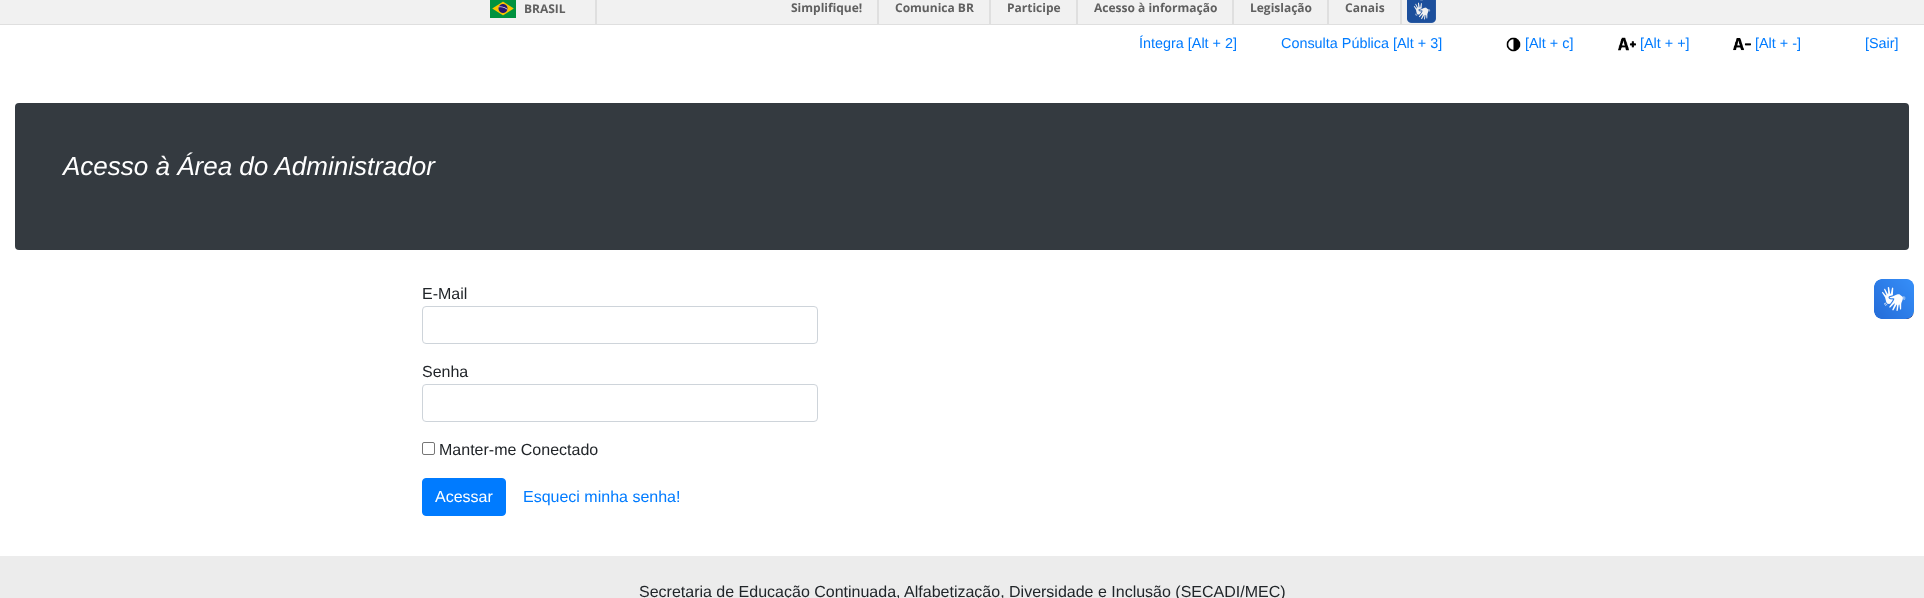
<!DOCTYPE html>
<meta charset="utf-8">
<style>body { margin: 0 } canvas { display: block }</style>
<canvas id="canvas" width="1924" height="598"></canvas>
<script type="module">
  const canvas = document.getElementById("canvas");
  const g = canvas.getContext("2d");
  g.miterLimit = 4;
  g.fontKerning = "normal";
  function drawText(s, x, y, [font, color]) {
    g.font = font;
    g.fillStyle = color;
    g.fillText(s, x, y);
  }
  function fillBox(x, y, w, h, color) {
    g.fillStyle = color;
    g.fillRect(x, y, w, h);
  }
  function fillRounded(x, y, w, h, r, color) {
    g.fillStyle = color;
    g.beginPath();
    g.roundRect(x, y, w, h, r);
    g.fill();
  }
  async function drawPicture(src, x, y, w, h) {
    const img = new Image();
    img.src = src;
    await img.decode();
    g.drawImage(img, x, y, w, h);
  }

  const s1 = ["bold 12px Open Sans", "#606060"];
  const s2 = ["14.4px Liberation Sans", "#007BFF"];
  const s3 = ["italic 26px Liberation Sans", "#FFFFFF"];
  const s4 = ["16px Liberation Sans", "#212529"];
  const s5 = ["16px Liberation Sans", "#FFFFFF"];
  const s6 = ["16px Liberation Sans", "#007BFF"];

  fillBox(0, 0, 1924, 598, "#FFFFFF");
  fillBox(0, 0, 1924, 24, "#F1F1F1");
  fillBox(0, 24, 1924, 1, "#DFDFDF");
  fillBox(595, 0, 2, 24, "#DFDFDF");
  await drawPicture("pic1.png", 490, 0, 26, 18);
  drawText("BRASIL", 524, 13, s1);
  fillBox(877, 0, 2, 24, "#DFDFDF");
  drawText("Simplifique!", 791, 12, s1);
  fillBox(989, 0, 2, 24, "#DFDFDF");
  drawText("Comunica BR", 895, 12, s1);
  fillBox(1076, 0, 2, 24, "#DFDFDF");
  drawText("Participe", 1007, 12, s1);
  fillBox(1232, 0, 2, 24, "#DFDFDF");
  drawText("Acesso à informação", 1094, 12, s1);
  fillBox(1327, 0, 2, 24, "#DFDFDF");
  drawText("Legislação", 1250, 12, s1);
  fillBox(1400, 0, 2, 24, "#DFDFDF");
  drawText("Canais", 1345, 12, s1);
  await drawPicture("pic2.png", 1407, 0, 29, 23);
  drawText("Íntegra [Alt + 2]", 1139, 48, s2);
  drawText("Consulta Pública [Alt + 3]", 1281, 48, s2);
  await drawPicture("pic3.png", 1506, 37, 15, 15);
  drawText("[Alt + c]", 1525, 48, s2);
  await drawPicture("pic4.png", 1618, 37, 18, 14);
  drawText("[Alt + +]", 1640, 48, s2);
  await drawPicture("pic5.png", 1733, 38, 18, 13);
  drawText("[Alt + -]", 1755, 48, s2);
  drawText("[Sair]", 1865, 48, s2);
  fillRounded(15, 103, 1894, 147, 4, "#343A40");
  drawText("Acesso à Área do Administrador", 63, 175, s3);
  drawText("E-Mail", 422, 299, s4);
  g.beginPath();
  g.roundRect(422.5, 306.5, 395, 37, 3.5);
  g.strokeStyle = "#CED4DA";
  g.stroke();
  drawText("Senha", 422, 377, s4);
  g.beginPath();
  g.roundRect(422.5, 384.5, 395, 37, 3.5);
  g.stroke();
  g.beginPath();
  g.roundRect(422.5, 442.5, 12, 12, 1.5);
  g.strokeStyle = "#767676";
  g.stroke();
  drawText("Manter-me Conectado", 439, 455, s4);
  g.fillStyle = "#007BFF";
  g.beginPath();
  g.roundRect(422.5, 478.5, 83, 37, 3.5);
  g.fill();
  g.strokeStyle = "#007BFF";
  g.stroke();
  drawText("Acessar", 435, 502, s5);
  drawText("Esqueci minha senha!", 523, 502, s6);
  await drawPicture("pic6.png", 1874, 279, 40, 40);
  await drawPicture("pic7.png", 1874, 279, 40, 40);
  fillBox(0, 556, 1924, 42, "#ECECEC");
  drawText("Secretaria de Educação Continuada, Alfabetização, Diversidade e Inclusão (SECADI/MEC)", 639, 597, s4);
</script>
